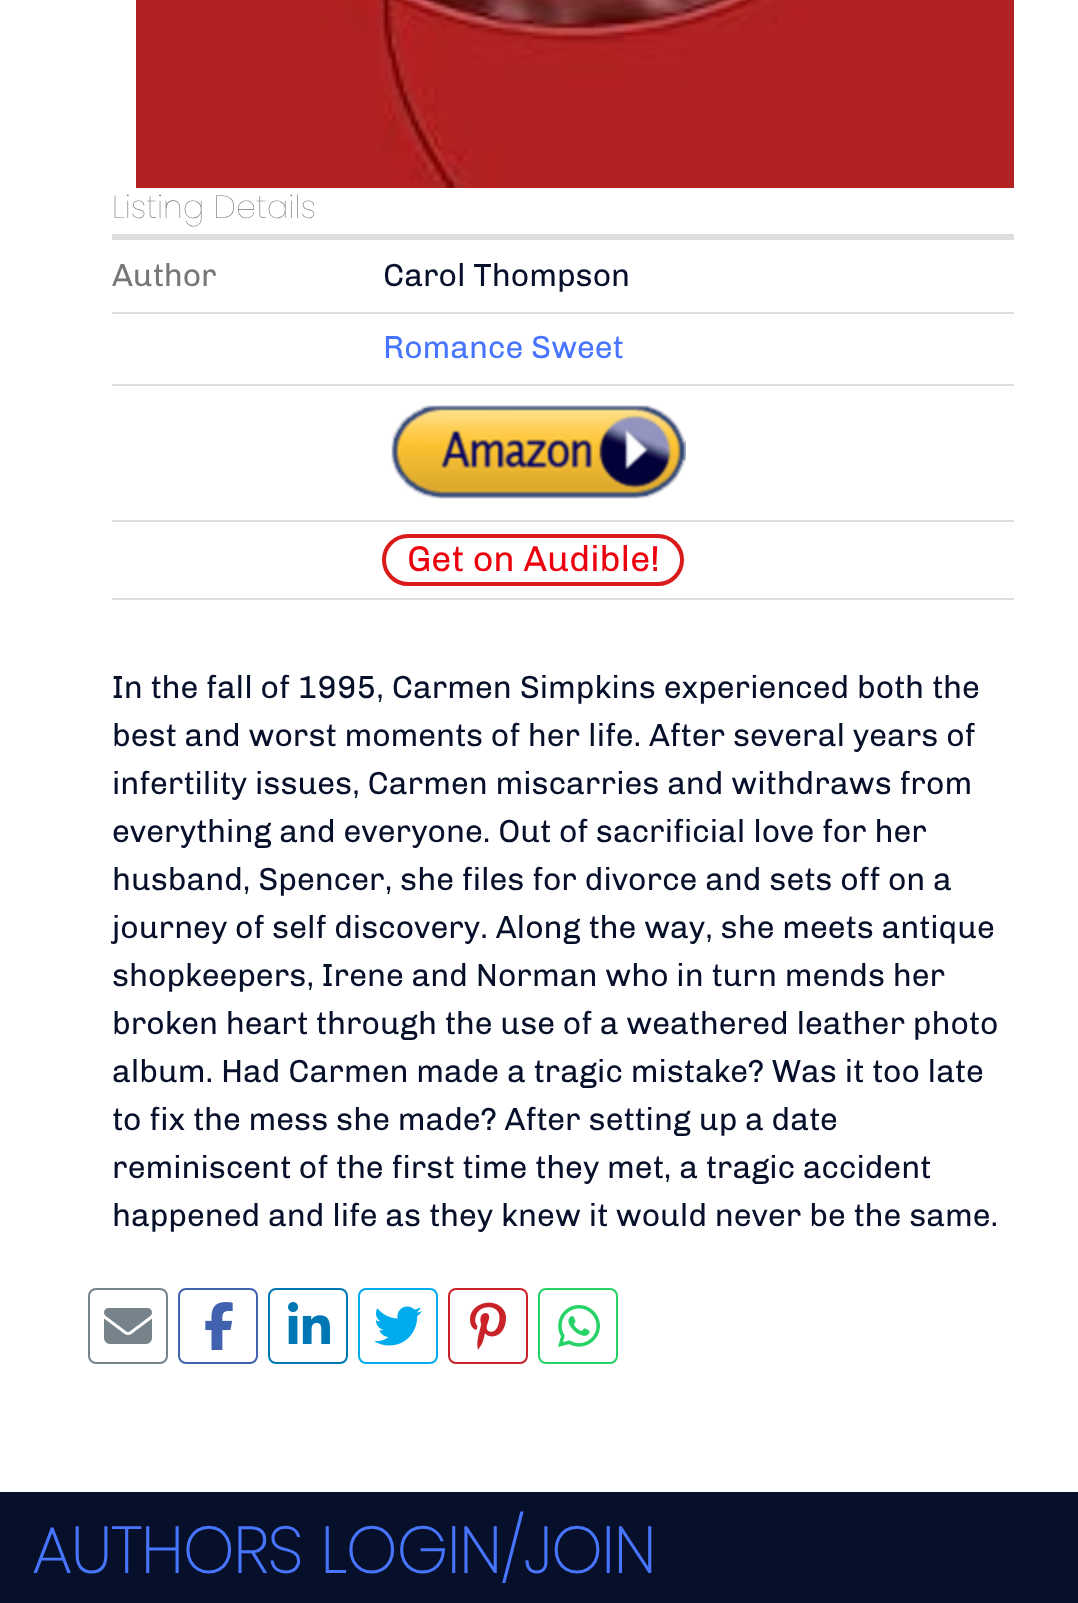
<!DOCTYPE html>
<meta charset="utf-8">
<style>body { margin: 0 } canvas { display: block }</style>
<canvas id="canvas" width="1078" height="1603"></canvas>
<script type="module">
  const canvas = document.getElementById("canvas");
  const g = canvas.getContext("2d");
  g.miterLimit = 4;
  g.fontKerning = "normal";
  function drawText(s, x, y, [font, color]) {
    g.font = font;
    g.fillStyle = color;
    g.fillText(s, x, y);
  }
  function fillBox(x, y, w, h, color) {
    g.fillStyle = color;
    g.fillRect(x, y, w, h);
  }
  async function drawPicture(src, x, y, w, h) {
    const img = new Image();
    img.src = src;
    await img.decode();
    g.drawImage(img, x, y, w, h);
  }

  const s1 = ["100 32px Poppins", "#777777"];
  const s2 = ["32px Chivo", "#777777"];
  const s3 = ["32px Chivo", "#07102A"];
  const s4 = ["32px Chivo", "#4875FF"];
  const s5 = ["36px Chivo", "#EC000D"];
  const s6 = ["bold 64px Poppins", "#4875FF"];

  fillBox(0, 0, 1078, 1603, "#FFFFFF");
  await drawPicture("pic1.png", 136, 0, 878, 188);
  fillBox(112, 234, 902, 6, "#DDDDDD");
  drawText("Listing Details", 112, 218, s1);
  fillBox(112, 312, 902, 2, "#DDDDDD");
  drawText("Author", 112, 286, s2);
  drawText("Carol Thompson", 383, 286, s3);
  fillBox(112, 384, 902, 2, "#DDDDDD");
  drawText("Romance Sweet", 383, 358, s4);
  fillBox(112, 520, 902, 2, "#DDDDDD");
  await drawPicture("pic2.png", 391, 405, 295, 94);
  fillBox(112, 598, 902, 2, "#DDDDDD");
  g.beginPath();
  g.roundRect(384, 536, 298, 48, 24);
  g.strokeStyle = "#DA1B1B";
  g.lineWidth = 4;
  g.stroke();
  drawText("Get on Audible!", 407, 571, s5);
  drawText("In the fall of 1995, Carmen Simpkins experienced both the", 112, 698, s3);
  drawText("best and worst moments of her life. After several years of", 112, 746, s3);
  drawText("infertility issues, Carmen miscarries and withdraws from", 112, 794, s3);
  drawText("everything and everyone. Out of sacrificial love for her", 112, 842, s3);
  drawText("husband, Spencer, she files for divorce and sets off on a", 112, 890, s3);
  drawText("journey of self discovery. Along the way, she meets antique", 112, 938, s3);
  drawText("shopkeepers, Irene and Norman who in turn mends her", 112, 986, s3);
  drawText("broken heart through the use of a weathered leather photo", 112, 1034, s3);
  drawText("album. Had Carmen made a tragic mistake? Was it too late", 112, 1082, s3);
  drawText("to fix the mess she made? After setting up a date", 112, 1130, s3);
  drawText("reminiscent of the first time they met, a tragic accident", 112, 1178, s3);
  drawText("happened and life as they knew it would never be the same.", 112, 1226, s3);
  g.beginPath();
  g.roundRect(89, 1289, 78, 74, 7);
  g.strokeStyle = "#76838B";
  g.lineWidth = 2;
  g.stroke();
  await drawPicture("pic3.png", 104, 1308, 48, 36);
  g.beginPath();
  g.roundRect(179, 1289, 78, 74, 7);
  g.strokeStyle = "#4163AF";
  g.stroke();
  await drawPicture("pic4.png", 205, 1302, 28, 48);
  g.beginPath();
  g.roundRect(269, 1289, 78, 74, 7);
  g.strokeStyle = "#0077B5";
  g.stroke();
  await drawPicture("pic5.png", 288, 1302, 42, 42);
  g.beginPath();
  g.roundRect(359, 1289, 78, 74, 7);
  g.strokeStyle = "#00ACED";
  g.stroke();
  await drawPicture("pic6.png", 374, 1306, 48, 40);
  g.beginPath();
  g.roundRect(449, 1289, 78, 74, 7);
  g.strokeStyle = "#C92228";
  g.stroke();
  await drawPicture("pic7.png", 470, 1302, 36, 48);
  g.beginPath();
  g.roundRect(539, 1289, 78, 74, 7);
  g.strokeStyle = "#25D366";
  g.stroke();
  await drawPicture("pic8.png", 558, 1305, 42, 42);
  fillBox(0, 1492, 1078, 111, "#07102A");
  drawText("AUTHORS LOGIN/JOIN", 32, 1573, s6);
</script>
